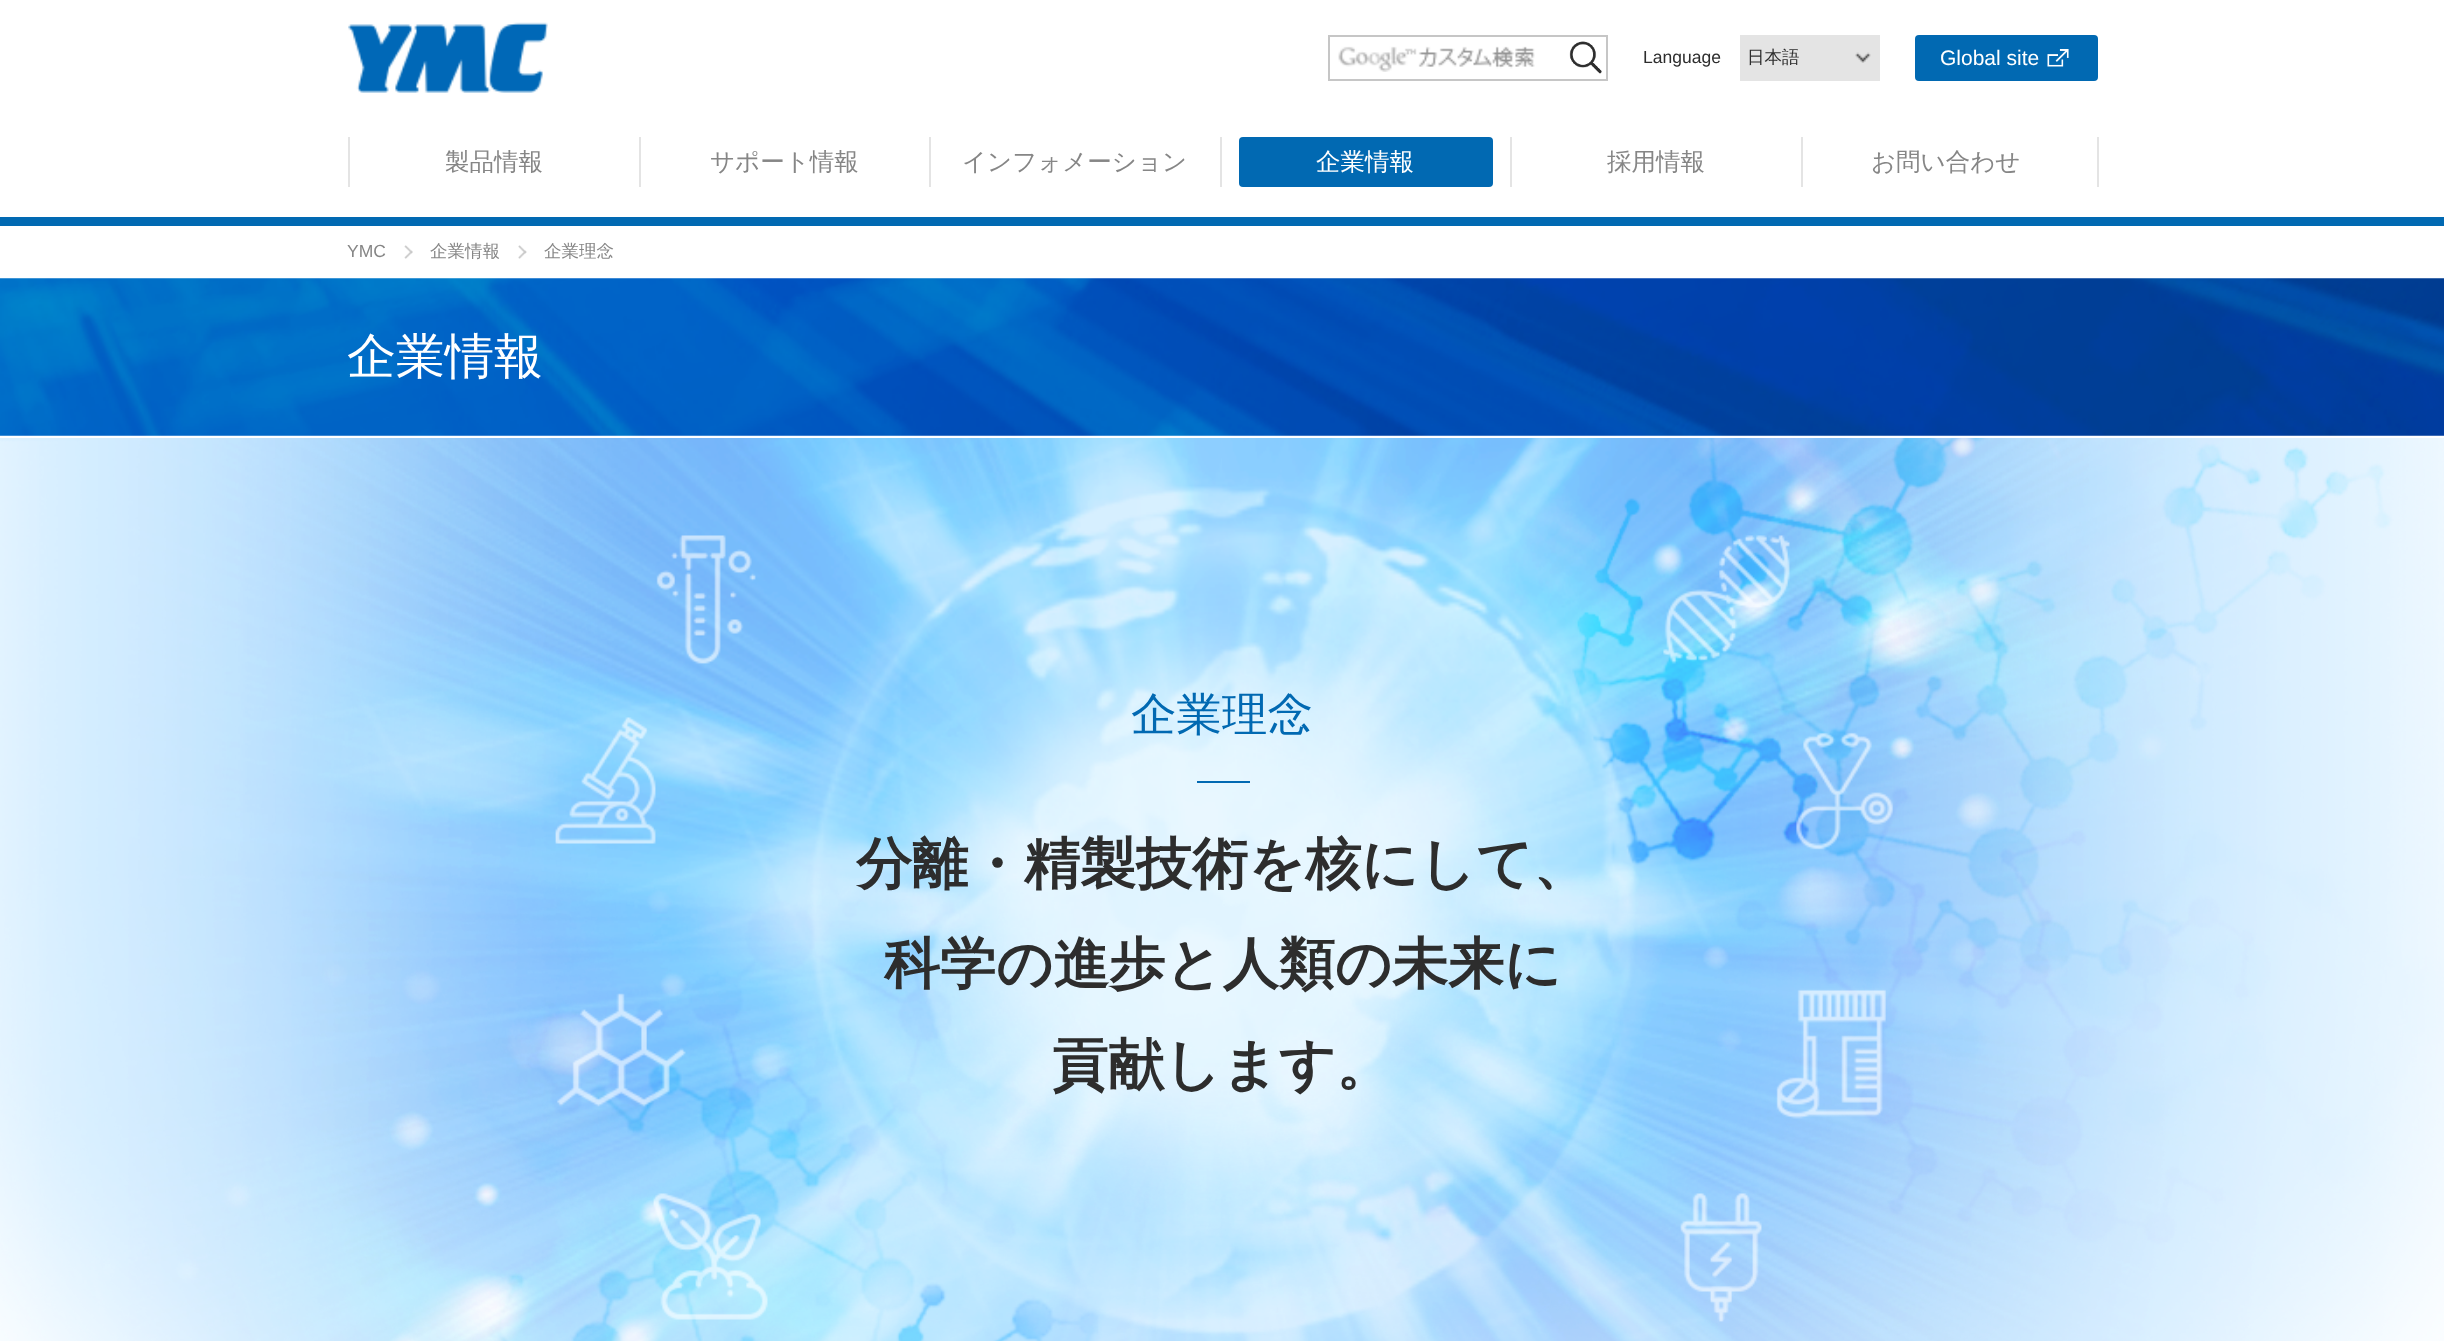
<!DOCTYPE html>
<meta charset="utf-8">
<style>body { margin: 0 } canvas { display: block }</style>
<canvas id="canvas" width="2444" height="1341"></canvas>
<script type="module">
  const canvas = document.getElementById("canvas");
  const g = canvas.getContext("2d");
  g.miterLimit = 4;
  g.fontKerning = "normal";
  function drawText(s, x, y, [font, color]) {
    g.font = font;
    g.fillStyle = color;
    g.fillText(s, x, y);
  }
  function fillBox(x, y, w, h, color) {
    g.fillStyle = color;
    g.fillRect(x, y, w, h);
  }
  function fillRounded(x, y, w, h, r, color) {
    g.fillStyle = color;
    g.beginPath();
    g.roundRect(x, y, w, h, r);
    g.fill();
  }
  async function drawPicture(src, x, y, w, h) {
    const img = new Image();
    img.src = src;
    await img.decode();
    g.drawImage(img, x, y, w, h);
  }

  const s1 = ["17.5px Liberation Sans", "#2D2D2D"];
  const s2 = ["500 17.5px WenQuanYi Zen Hei", "#2D2D2D"];
  const s3 = ["21px Liberation Sans", "#FFFFFF"];
  const s4 = ["500 24.5px WenQuanYi Zen Hei", "#868686"];
  const s5 = ["500 24.5px WenQuanYi Zen Hei", "#FFFFFF"];
  const s6 = ["17.5px Liberation Sans", "#868686"];
  const s7 = ["500 17.5px WenQuanYi Zen Hei", "#868686"];
  const s8 = ["500 49px WenQuanYi Zen Hei", "#FFFFFF"];
  const s9 = ["500 45.5px WenQuanYi Zen Hei", "#0169B2"];
  const s10 = ["bold 56px WenQuanYi Zen Hei", "#2D2D2D"];

  fillBox(0, 0, 2444, 1341, "#FFFFFF");
  fillBox(0, 217, 2444, 9, "#0169B2");
  await drawPicture("pic1.png", 348, 22, 200, 71);
  await drawPicture("pic2.png", 1338, 46, 197, 26);
  g.strokeStyle = "#C6C6C6";
  g.lineWidth = 2;
  g.strokeRect(1329, 36, 278, 44);
  await drawPicture("pic3.png", 1569, 41, 33, 33);
  drawText("Language", 1643, 63, s1);
  fillBox(1740, 35, 140, 46, "#E4E4E4");
  await drawPicture("pic4.png", 1855, 52, 16, 11);
  drawText("日本語", 1747, 63, s2);
  fillRounded(1915, 35, 183, 46, 4, "#0169B2");
  drawText("Global site", 1940, 65, s3);
  await drawPicture("pic5.png", 2047, 49, 22, 18);
  fillBox(348, 137, 2, 50, "#E4E4E4");
  drawText("製品情報", 445, 170, s4);
  fillBox(639, 137, 2, 50, "#E4E4E4");
  drawText("サポート情報", 710, 170, s4);
  fillBox(929, 137, 2, 50, "#E4E4E4");
  drawText("インフォメーション", 962, 170, s4);
  fillBox(1220, 137, 2, 50, "#E4E4E4");
  fillRounded(1239, 137, 254, 50, 4, "#0169B2");
  drawText("企業情報", 1316, 170, s5);
  fillBox(1510, 137, 2, 50, "#E4E4E4");
  drawText("採用情報", 1607, 170, s4);
  fillBox(1801, 137, 2, 50, "#E4E4E4");
  drawText("お問い合わせ", 1871, 170, s4);
  fillBox(2097, 137, 2, 50, "#E4E4E4");
  drawText("YMC", 347, 257, s6);
  await drawPicture("pic6.png", 404, 245, 9, 14);
  drawText("企業情報", 430, 257, s7);
  await drawPicture("pic7.png", 518, 245, 9, 14);
  drawText("企業理念", 544, 257, s7);
  await drawPicture("pic8.png", 0, 278, 2444, 158);
  drawText("企業情報", 347, 373, s8);
  await drawPicture("pic9.png", 0, 438, 2444, 903);
  drawText("企業理念", 1131, 730, s9);
  fillBox(1197, 781, 53, 2, "#0169B2");
  drawText("分離・精製技術を核にして、", 856, 883, s10);
  drawText("科学の進歩と人類の未来に", 884, 983, s10);
  drawText("貢献します。", 1052, 1084, s10);
</script>
